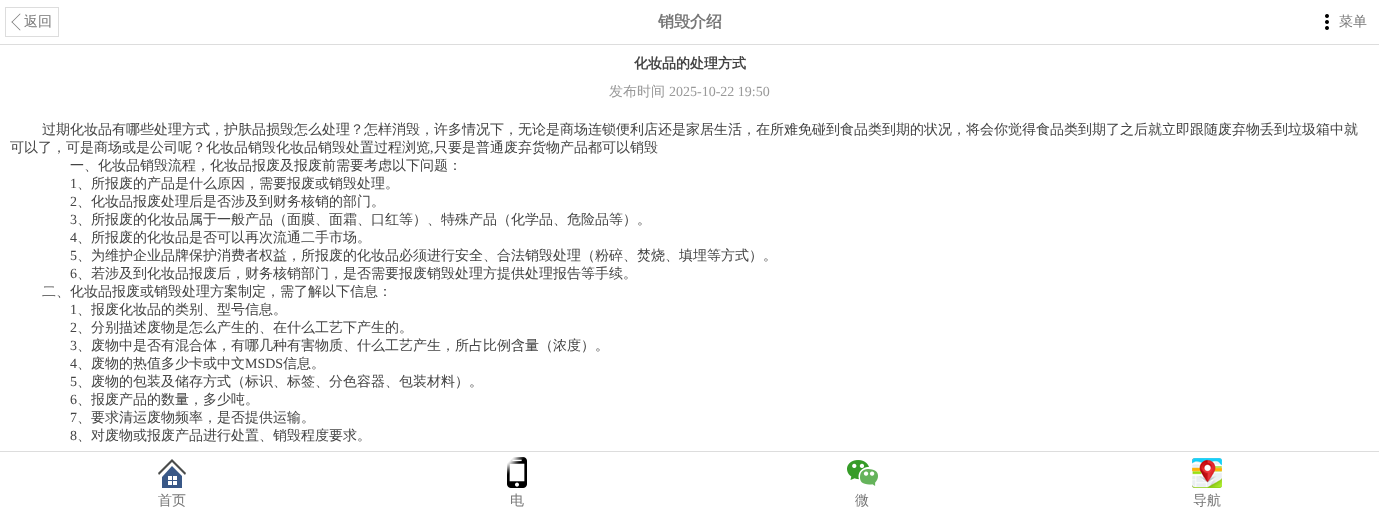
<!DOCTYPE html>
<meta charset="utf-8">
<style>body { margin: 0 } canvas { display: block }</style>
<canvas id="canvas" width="1379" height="514"></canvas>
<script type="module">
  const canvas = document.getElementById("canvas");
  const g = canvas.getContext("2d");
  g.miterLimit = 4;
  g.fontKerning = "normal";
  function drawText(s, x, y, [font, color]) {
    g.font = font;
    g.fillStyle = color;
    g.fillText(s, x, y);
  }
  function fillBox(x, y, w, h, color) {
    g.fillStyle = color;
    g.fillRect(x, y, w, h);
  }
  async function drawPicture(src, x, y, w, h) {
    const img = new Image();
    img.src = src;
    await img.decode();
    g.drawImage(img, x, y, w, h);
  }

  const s1 = ["500 14px WenQuanYi Zen Hei", "#777777"];
  const s2 = ["bold 16px WenQuanYi Zen Hei", "#777777"];
  const s3 = ["bold 14px WenQuanYi Zen Hei", "#444444"];
  const s4 = ["500 14px WenQuanYi Zen Hei", "#999999"];
  const s5 = ["14px Liberation Serif", "#999999"];
  const s6 = ["500 14px WenQuanYi Zen Hei", "#444444"];
  const s7 = ["14px Liberation Serif", "#444444"];

  fillBox(0, 0, 1379, 514, "#FFFFFF");
  fillBox(0, 44, 1379, 1, "#DDDDDD");
  g.strokeStyle = "#DDDDDD";
  g.strokeRect(5.5, 7.5, 53, 29);
  g.fillStyle = "#777777";
  g.beginPath();
  g.moveTo(12, 21.5);
  g.lineTo(20.5, 30);
  g.lineTo(20, 30.5);
  g.lineTo(11.5, 22);
  g.closePath();
  g.fill();
  g.beginPath();
  g.moveTo(20, 13.5);
  g.lineTo(20.5, 14);
  g.lineTo(12, 22.5);
  g.lineTo(11.5, 22);
  g.closePath();
  g.fill();
  drawText("返回", 24, 26, s1);
  drawText("销毁介绍", 658, 27, s2);
  await drawPicture("pic1.png", 1325, 14, 4, 16);
  drawText("菜单", 1339, 26, s1);
  drawText("化妆品的处理方式", 634, 68, s3);
  drawText("发布时间", 609, 96, s4);
  drawText("2025-10-22 19:50", 669, 96, s5);
  drawText("过期化妆品有哪些处理方式，护肤品损毁怎么处理？怎样消毁，许多情况下，无论是商场连锁便利店还是家居生活，在所难免碰到食品类到期的状况，将会你觉得食品类到期了之后就立即跟随废弃物丢到垃圾箱中就", 42, 134, s6);
  drawText("可以了，可是商场或是公司呢？化妆品销毁化妆品销毁处置过程浏览", 10, 152, s6);
  drawText(",", 430, 152, s7);
  drawText("只要是普通废弃货物产品都可以销毁", 434, 152, s6);
  drawText("一、化妆品销毁流程，化妆品报废及报废前需要考虑以下问题：", 70, 170, s6);
  drawText("1", 70, 188, s7);
  drawText("、所报废的产品是什么原因，需要报废或销毁处理。", 77, 188, s6);
  drawText("2", 70, 206, s7);
  drawText("、化妆品报废处理后是否涉及到财务核销的部门。", 77, 206, s6);
  drawText("3", 70, 224, s7);
  drawText("、所报废的化妆品属于一般产品（面膜、面霜、口红等）、特殊产品（化学品、危险品等）。", 77, 224, s6);
  drawText("4", 70, 242, s7);
  drawText("、所报废的化妆品是否可以再次流通二手市场。", 77, 242, s6);
  drawText("5", 70, 260, s7);
  drawText("、为维护企业品牌保护消费者权益，所报废的化妆品必须进行安全、合法销毁处理（粉碎、焚烧、填埋等方式）。", 77, 260, s6);
  drawText("6", 70, 278, s7);
  drawText("、若涉及到化妆品报废后，财务核销部门，是否需要报废销毁处理方提供处理报告等手续。", 77, 278, s6);
  drawText("二、化妆品报废或销毁处理方案制定，需了解以下信息：", 42, 296, s6);
  drawText("1", 70, 314, s7);
  drawText("、报废化妆品的类别、型号信息。", 77, 314, s6);
  drawText("2", 70, 332, s7);
  drawText("、分别描述废物是怎么产生的、在什么工艺下产生的。", 77, 332, s6);
  drawText("3", 70, 350, s7);
  drawText("、废物中是否有混合体，有哪几种有害物质、什么工艺产生，所占比例含量（浓度）。", 77, 350, s6);
  drawText("4", 70, 368, s7);
  drawText("、废物的热值多少卡或中文", 77, 368, s6);
  drawText("MSDS", 245, 368, s7);
  drawText("信息。", 283, 368, s6);
  drawText("5", 70, 386, s7);
  drawText("、废物的包装及储存方式（标识、标签、分色容器、包装材料）。", 77, 386, s6);
  drawText("6", 70, 404, s7);
  drawText("、报废产品的数量，多少吨。", 77, 404, s6);
  drawText("7", 70, 422, s7);
  drawText("、要求清运废物频率，是否提供运输。", 77, 422, s6);
  drawText("8", 70, 440, s7);
  drawText("、对废物或报废产品进行处置、销毁程度要求。", 77, 440, s6);
  fillBox(0, 451, 1379, 1, "#DDDDDD");
  await drawPicture("pic2.png", 158, 459, 28, 29);
  drawText("首页", 158, 505, s1);
  await drawPicture("pic3.png", 507, 457, 20, 31);
  drawText("电", 510, 505, s1);
  await drawPicture("pic4.png", 847, 460, 31, 26);
  drawText("微", 855, 505, s1);
  await drawPicture("pic5.png", 1192, 458, 30, 30);
  drawText("导航", 1193, 505, s1);
</script>
